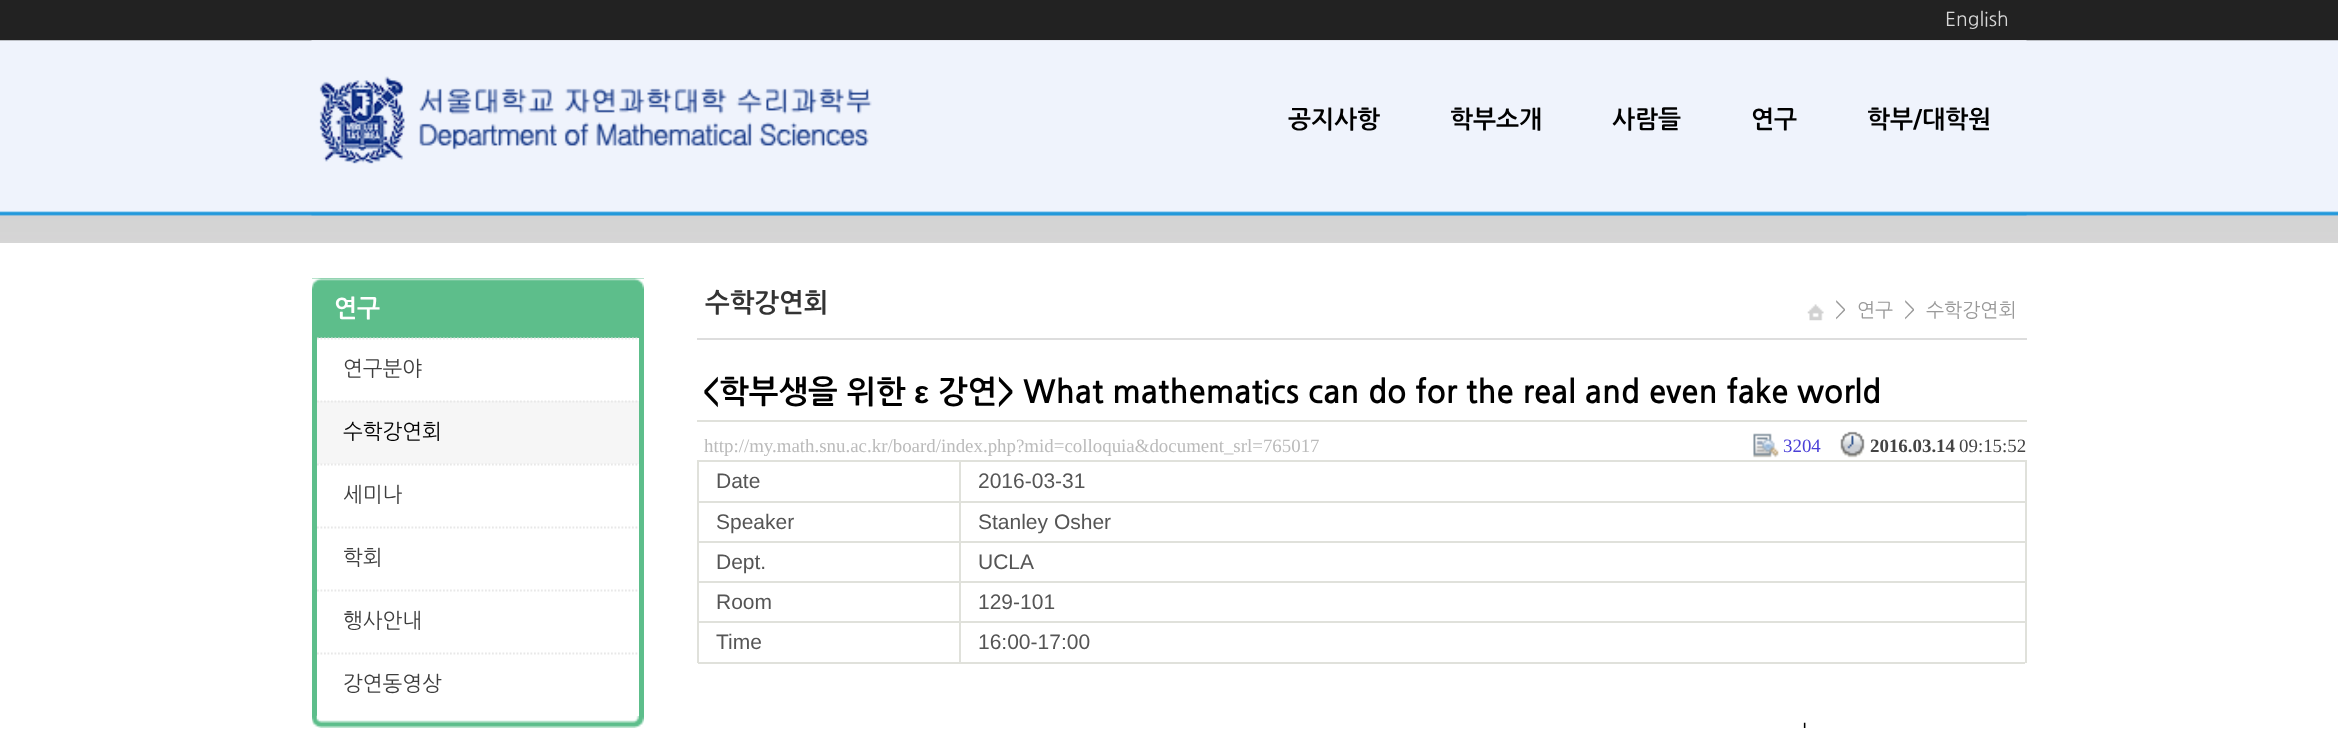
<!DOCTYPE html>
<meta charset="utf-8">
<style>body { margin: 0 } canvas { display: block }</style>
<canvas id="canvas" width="2338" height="729"></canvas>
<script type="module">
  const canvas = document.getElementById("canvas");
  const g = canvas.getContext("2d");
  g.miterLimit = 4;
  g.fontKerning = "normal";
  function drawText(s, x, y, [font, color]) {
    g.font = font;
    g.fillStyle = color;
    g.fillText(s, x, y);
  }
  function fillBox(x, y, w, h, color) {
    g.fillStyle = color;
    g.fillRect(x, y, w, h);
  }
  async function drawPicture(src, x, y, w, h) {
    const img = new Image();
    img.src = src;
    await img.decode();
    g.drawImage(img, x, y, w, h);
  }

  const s1 = ["19.25px NanumGothic", "#D8D8D8"];
  const s2 = ["bold 24.5px NanumGothic", "#000000"];
  const s3 = ["bold 24.5px NanumGothic", "#FFFFFF"];
  const s4 = ["21px NanumGothic", "#3E3E3E"];
  const s5 = ["21px NanumGothic", "#000000"];
  const s6 = ["bold 26.25px NanumGothic", "#333333"];
  const s7 = ["21px NanumGothic", "#999999"];
  const s8 = ["19.25px NanumGothic", "#999999"];
  const s9 = ["bold 31.5px NanumGothic", "#000000"];
  const s10 = ["bold 31.5px Liberation Sans", "#000000"];
  const s11 = ["18.9px Liberation Serif", "#BBBBBB"];
  const s12 = ["18.9px Liberation Serif", "#4A3FD7"];
  const s13 = ["bold 18.9px Liberation Serif", "#444444"];
  const s14 = ["18.9px Liberation Serif", "#444444"];
  const s15 = ["21px Liberation Sans", "#555555"];
  const s16 = ["23px NanumGothic", "#000000"];

  fillBox(0, 0, 2338, 729, "#222222");
  drawText("English", 1945, 26, s1);
  await drawPicture("pic1.png", 0, 40, 2338, 203);
  await drawPicture("pic2.png", 311, 40, 1716, 176);
  await drawPicture("pic3.png", 319, 76, 553, 88);
  drawText("공지사항", 1288, 128, s2);
  drawText("학부소개", 1450, 128, s2);
  drawText("사람들", 1612, 128, s2);
  drawText("연구", 1751, 128, s2);
  drawText("학부/대학원", 1867, 128, s2);
  fillBox(0, 243, 2338, 486, "#FFFFFF");
  fillBox(312, 278, 332, 450, "#5DBE8B");
  await drawPicture("pic4.png", 312, 278, 332, 11);
  drawText("연구", 334, 317, s3);
  fillBox(317, 338, 322, 378, "#FFFFFF");
  g.beginPath();
  g.moveTo(317, 338.5);
  g.lineTo(639, 338.5);
  g.strokeStyle = "#E8E8E8";
  g.lineWidth = 1.8;
  g.setLineDash([1.75, 1.75]);
  g.stroke();
  drawText("연구분야", 343, 376, s4);
  fillBox(317, 401, 322, 63, "#F6F6F6");
  g.beginPath();
  g.moveTo(317, 401.5);
  g.lineTo(639, 401.5);
  g.stroke();
  drawText("수학강연회", 343, 439, s5);
  g.beginPath();
  g.moveTo(317, 464.5);
  g.lineTo(639, 464.5);
  g.stroke();
  drawText("세미나", 343, 502, s4);
  g.beginPath();
  g.moveTo(317, 527.5);
  g.lineTo(639, 527.5);
  g.stroke();
  drawText("학회", 343, 565, s4);
  g.beginPath();
  g.moveTo(317, 590.5);
  g.lineTo(639, 590.5);
  g.stroke();
  drawText("행사안내", 343, 628, s4);
  g.beginPath();
  g.moveTo(317, 653.5);
  g.lineTo(639, 653.5);
  g.stroke();
  drawText("강연동영상", 343, 691, s4);
  await drawPicture("pic5.png", 316, 715, 323, 8);
  await drawPicture("pic6.png", 312, 717, 332, 11);
  fillBox(697, 338, 1330, 2, "#DDDDDD");
  drawText("수학강연회", 705, 312, s6);
  await drawPicture("pic7.png", 1807, 304, 17, 17);
  drawText(">", 1835, 317, s7);
  drawText("연구", 1857, 317, s8);
  drawText(">", 1904, 317, s7);
  drawText("수학강연회", 1926, 317, s8);
  fillBox(697, 420, 1330, 2, "#E0E1DB");
  drawText("<학부생을 위한", 702, 403, s9);
  drawText("ε", 914, 403, s10);
  drawText("강연> What mathematics can do for the real and even fake world", 938, 403, s9);
  drawText("http://my.math.snu.ac.kr/board/index.php?mid=colloquia&document_srl=765017", 704, 452, s11);
  await drawPicture("pic8.png", 1753, 433, 26, 25);
  drawText("3204", 1783, 452, s12);
  await drawPicture("pic9.png", 1840, 431, 25, 27);
  drawText("2016.03.14", 1870, 452, s13);
  drawText("09:15:52", 1959, 452, s14);
  fillBox(697, 460, 1330, 2, "#E0E1DB");
  fillBox(2025, 460, 2, 203, "#E0E1DB");
  fillBox(697, 460, 2, 203, "#E0E1DB");
  fillBox(959, 462, 2, 40, "#E0E1DB");
  fillBox(698, 501, 1327, 2, "#E0E1DB");
  drawText("Date", 716, 488, s15);
  drawText("2016-03-31", 978, 488, s15);
  fillBox(959, 502, 2, 161, "#E0E1DB");
  fillBox(698, 541, 1327, 2, "#E0E1DB");
  drawText("Speaker", 716, 529, s15);
  drawText("Stanley Osher", 978, 529, s15);
  fillBox(698, 581, 1327, 2, "#E0E1DB");
  drawText("Dept.", 716, 569, s15);
  drawText("UCLA", 978, 569, s15);
  fillBox(698, 621, 1327, 2, "#E0E1DB");
  drawText("Room", 716, 609, s15);
  drawText("129-101", 978, 609, s15);
  fillBox(698, 662, 1327, 2, "#E0E1DB");
  drawText("Time", 716, 649, s15);
  drawText("16:00-17:00", 978, 649, s15);
  drawText("'", 1801, 740, s16);
</script>
